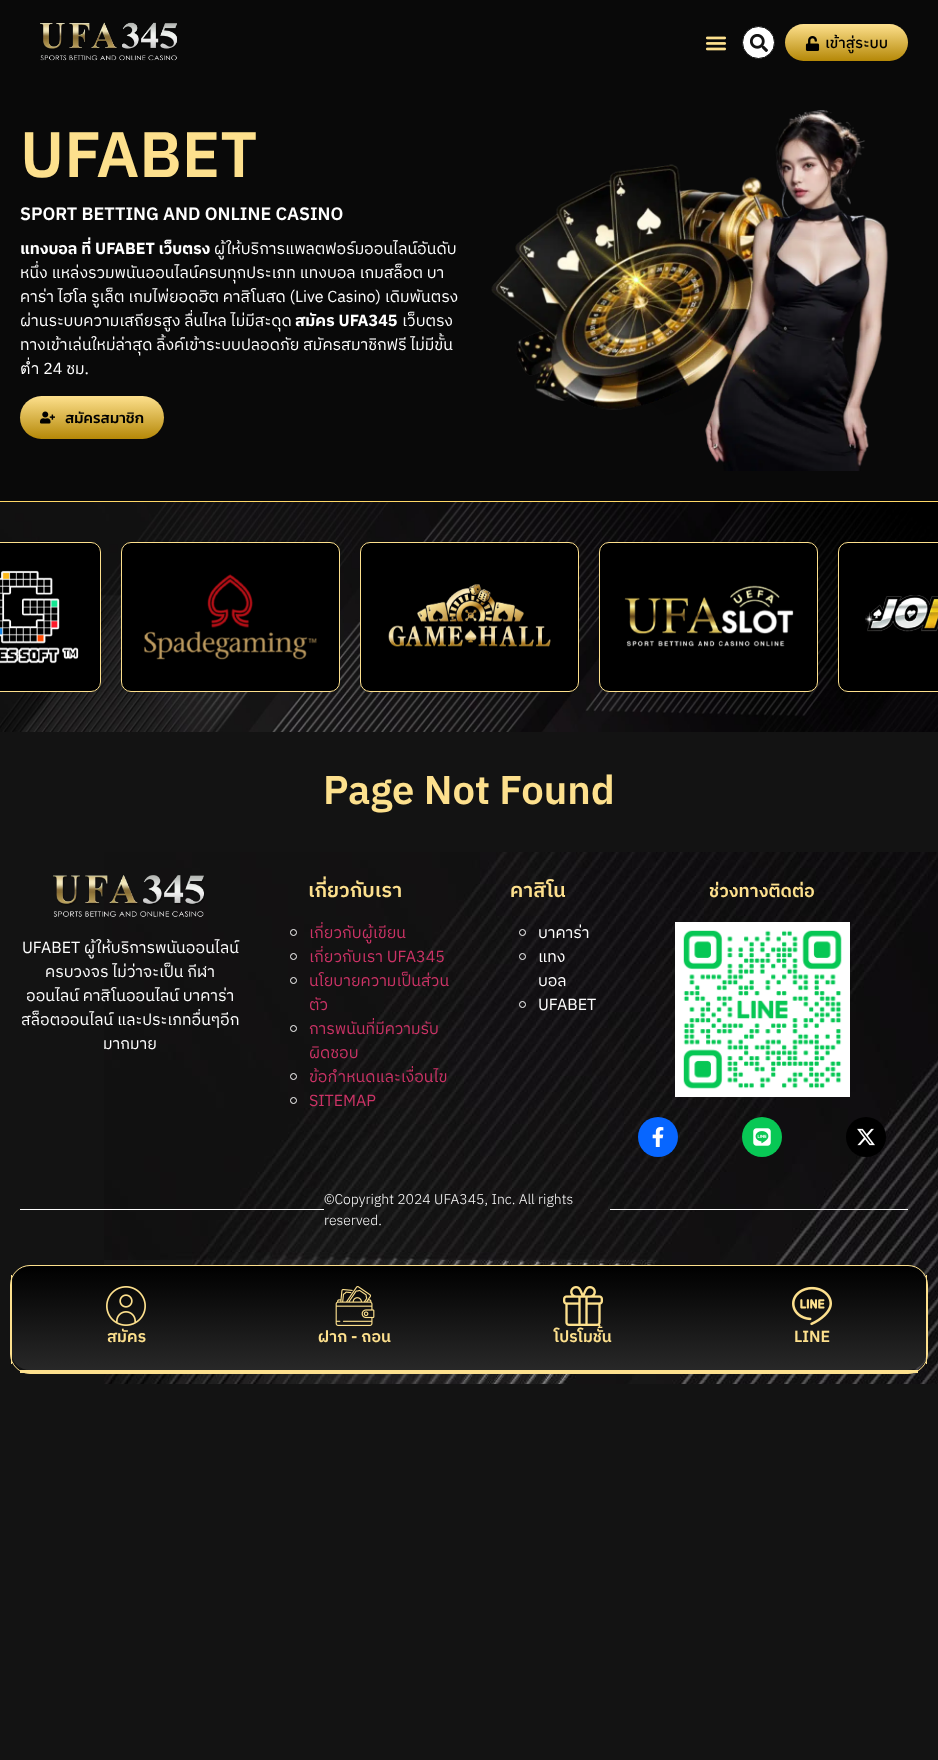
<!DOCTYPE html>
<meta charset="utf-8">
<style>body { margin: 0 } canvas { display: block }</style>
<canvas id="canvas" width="938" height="1760"></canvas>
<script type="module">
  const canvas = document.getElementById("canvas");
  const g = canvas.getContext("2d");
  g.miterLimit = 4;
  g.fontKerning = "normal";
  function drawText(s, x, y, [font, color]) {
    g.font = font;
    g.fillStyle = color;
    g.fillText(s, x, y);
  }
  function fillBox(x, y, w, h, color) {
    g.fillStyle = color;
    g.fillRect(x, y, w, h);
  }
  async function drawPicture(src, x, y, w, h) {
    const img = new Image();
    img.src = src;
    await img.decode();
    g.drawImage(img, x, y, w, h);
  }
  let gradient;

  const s1 = ["500 15px IBM Plex Sans Thai", "#000000"];
  const s2 = ["600 64px IBM Plex Sans Thai", "#FDE08D"];
  const s3 = ["600 18px IBM Plex Sans Thai", "#FFFFFF"];
  const s4 = ["bold 16px IBM Plex Sans Thai", "#FFFFFF"];
  const s5 = ["16px IBM Plex Sans Thai", "#FFFFFF"];
  const s6 = ["500 15px Kanit", "#000000"];
  const s7 = ["600 40px IBM Plex Sans Thai", "#FDE08D"];
  const s8 = ["600 20px IBM Plex Sans Thai", "#FDE08D"];
  const s9 = ["16px IBM Plex Sans Thai", "#CC3366"];
  const s10 = ["600 18px IBM Plex Sans Thai", "#FDE08D"];
  const s11 = ["300 14px IBM Plex Sans Thai", "#FFFFFF"];
  const s12 = ["600 16px IBM Plex Sans Thai", "#FDE08D"];

  fillBox(0, 0, 938, 1760, "#131313");
  fillBox(0, 0, 938, 501, "#090909");
  await drawPicture("pic1.png", 40, 22, 137, 39);
  await drawPicture("pic2.png", 705, 36, 22, 15);
  g.fillStyle = "#FFFFFF";
  g.beginPath();
  g.arc(758.5, 42.5, 16, 0, Math.PI * 2);
  g.fill();
  g.strokeStyle = "#131313";
  g.stroke();
  await drawPicture("pic3.png", 750, 34, 18, 18);
  gradient = g.createLinearGradient(847, 24, 847, 61);
  gradient.addColorStop(0, "#FDE08D");
  gradient.addColorStop(1, "#B58807");
  g.fillStyle = gradient;
  g.beginPath();
  g.roundRect(785, 24, 123, 37, 18.5);
  g.fill();
  await drawPicture("pic4.png", 805, 36, 15, 15);
  drawText("เข้าสู่ระบบ", 825, 48, s1);
  drawText("UFABET", 20, 177, s2);
  drawText("SPORT BETTING AND ONLINE CASINO", 20, 220, s3);
  drawText("แทงบอล ที่ UFABET เว็บตรง", 20, 254, s4);
  drawText("ผู้ให้บริการแพลตฟอร์มออนไลน์อันดับ", 214, 254, s5);
  drawText("หนึ่ง แหล่งรวมพนันออนไลน์ครบทุกประเภท แทงบอล เกมสล็อต บา", 20, 278, s5);
  drawText("คาร่า ไฮโล รูเล็ต เกมไพ่ยอดฮิต คาสิโนสด (Live Casino) เดิมพันตรง", 20, 302, s5);
  drawText("ผ่านระบบความเสถียรสูง ลื่นไหล ไม่มีสะดุด", 20, 326, s5);
  drawText("สมัคร UFA345", 295, 326, s4);
  drawText("เว็บตรง", 402, 326, s5);
  drawText("ทางเข้าเล่นใหม่ล่าสุด ลิ้งค์เข้าระบบปลอดภัย สมัครสมาชิกฟรี ไม่มีขั้น", 20, 350, s5);
  drawText("ต่ำ 24 ชม.", 20, 374, s5);
  gradient = g.createLinearGradient(92, 396, 92, 439);
  gradient.addColorStop(0, "#FDE08D");
  gradient.addColorStop(1, "#B58807");
  g.fillStyle = gradient;
  g.beginPath();
  g.roundRect(20, 396, 144, 43, 21.5);
  g.fill();
  await drawPicture("pic5.png", 40, 411, 15, 13);
  drawText("สมัครสมาชิก", 65, 423, s6);
  await drawPicture("pic6.png", 491, 110, 398, 361);
  await drawPicture("pic7.png", 0, 502, 938, 230);
  fillBox(0, 501, 938, 1, "#FFD867");
  g.fillStyle = "#000000";
  g.beginPath();
  g.roundRect(0, 542, 101, 150, [0, 10, 10, 0]);
  g.fill();
  g.beginPath();
  g.roundRect(-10.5, 542.5, 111, 149, 9.5);
  g.strokeStyle = "#FDE08D";
  g.stroke();
  await drawPicture("pic8.png", 0, 570, 79, 94);
  g.beginPath();
  g.roundRect(121.5, 542.5, 218, 149, 9.5);
  g.fill();
  g.stroke();
  await drawPicture("pic9.png", 144, 574, 173, 86);
  g.beginPath();
  g.roundRect(360.5, 542.5, 218, 149, 9.5);
  g.fill();
  g.stroke();
  await drawPicture("pic10.png", 388, 584, 163, 63);
  g.beginPath();
  g.roundRect(599.5, 542.5, 218, 149, 9.5);
  g.fill();
  g.stroke();
  await drawPicture("pic11.png", 624, 585, 170, 62);
  g.beginPath();
  g.roundRect(838, 542, 100, 150, [10, 0, 0, 10]);
  g.fill();
  g.beginPath();
  g.roundRect(838.5, 542.5, 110, 149, 9.5);
  g.stroke();
  await drawPicture("pic12.png", 865, 595, 73, 37);
  drawText("Page Not Found", 323, 804, s7);
  await drawPicture("pic13.png", 104, 852, 834, 532);
  drawText("เกี่ยวกับเรา", 308, 897, s8);
  g.beginPath();
  g.arc(293.5, 932.5, 3, 0, Math.PI * 2);
  g.strokeStyle = "#FFFFFF";
  g.stroke();
  drawText("เกี่ยวกับผู้เขียน", 309, 938, s9);
  g.beginPath();
  g.arc(293.5, 956.5, 3, 0, Math.PI * 2);
  g.stroke();
  drawText("เกี่ยวกับเรา UFA345", 309, 962, s9);
  g.beginPath();
  g.arc(293.5, 980.5, 3, 0, Math.PI * 2);
  g.stroke();
  drawText("นโยบายความเป็นส่วน", 309, 986, s9);
  drawText("ตัว", 309, 1010, s9);
  g.beginPath();
  g.arc(293.5, 1028.5, 3, 0, Math.PI * 2);
  g.stroke();
  drawText("การพนันที่มีความรับ", 309, 1034, s9);
  drawText("ผิดชอบ", 309, 1058, s9);
  g.beginPath();
  g.arc(293.5, 1076.5, 3, 0, Math.PI * 2);
  g.stroke();
  drawText("ข้อกำหนดและเงื่อนไข", 309, 1082, s9);
  g.beginPath();
  g.arc(293.5, 1100.5, 3, 0, Math.PI * 2);
  g.stroke();
  drawText("SITEMAP", 309, 1106, s9);
  drawText("คาสิโน", 510, 897, s8);
  g.beginPath();
  g.arc(522.5, 932.5, 3, 0, Math.PI * 2);
  g.stroke();
  drawText("บาคาร่า", 538, 938, s5);
  g.beginPath();
  g.arc(522.5, 956.5, 3, 0, Math.PI * 2);
  g.stroke();
  drawText("แทง", 538, 962, s5);
  drawText("บอล", 538, 986, s5);
  g.beginPath();
  g.arc(522.5, 1004.5, 3, 0, Math.PI * 2);
  g.stroke();
  drawText("UFABET", 538, 1010, s5);
  drawText("ช่วงทางติดต่อ", 709, 897, s10);
  await drawPicture("pic14.png", 675, 922, 175, 175);
  g.fillStyle = "#0766FF";
  g.beginPath();
  g.arc(658, 1137, 20, 0, Math.PI * 2);
  g.fill();
  await drawPicture("pic15.png", 652, 1127, 12, 20);
  g.fillStyle = "#08C855";
  g.beginPath();
  g.arc(762, 1137, 20, 0, Math.PI * 2);
  g.fill();
  await drawPicture("pic16.png", 753, 1128, 18, 18);
  g.fillStyle = "#000000";
  g.beginPath();
  g.arc(866, 1137, 20, 0, Math.PI * 2);
  g.fill();
  await drawPicture("pic17.png", 857, 1128, 18, 18);
  await drawPicture("pic18.png", 53, 875, 152, 42);
  drawText("UFABET ผู้ให้บริการพนันออนไลน์", 22, 953, s5);
  drawText("ครบวงจร ไม่ว่าจะเป็น กีฬา", 45, 977, s5);
  drawText("ออนไลน์ คาสิโนออนไลน์ บาคาร่า", 26, 1001, s5);
  drawText("สล็อตออนไลน์ และประเภทอื่นๆอีก", 21, 1025, s5);
  drawText("มากมาย", 103, 1049, s5);
  fillBox(20, 1209, 304, 1, "#FFFFFF");
  drawText("©Copyright 2024 UFA345, Inc. All rights", 324, 1204, s11);
  drawText("reserved.", 324, 1225, s11);
  fillBox(610, 1209, 298, 1, "#FFFFFF");
  gradient = g.createLinearGradient(469, 1266, 469, 1370);
  gradient.addColorStop(0, "#000000");
  gradient.addColorStop(1, "#282828");
  g.fillStyle = gradient;
  g.beginPath();
  g.moveTo(30, 1266);
  g.lineTo(908, 1266);
  g.bezierCurveTo(918, 1266, 926, 1275, 926, 1285);
  g.lineTo(926, 1354);
  g.bezierCurveTo(926, 1363, 918, 1370, 908, 1370);
  g.lineTo(30, 1370);
  g.bezierCurveTo(20, 1370, 12, 1363, 12, 1354);
  g.lineTo(12, 1285);
  g.bezierCurveTo(12, 1275, 20, 1266, 30, 1266);
  g.closePath();
  g.fill();
  g.beginPath();
  g.roundRect(10.5, 1265.5, 917, 108, 19.5);
  g.strokeStyle = "#FDE08D";
  g.stroke();
  fillBox(926, 1275, 1, 89, "#FDE08D");
  fillBox(20, 1370, 898, 3, "#FDE08D");
  fillBox(11, 1275, 1, 89, "#FDE08D");
  await drawPicture("pic19.png", 106, 1286, 40, 40);
  drawText("สมัคร", 107, 1342, s12);
  await drawPicture("pic20.png", 335, 1286, 40, 40);
  drawText("ฝาก - ถอน", 318, 1342, s12);
  drawText("โปรโมชั้น", 554, 1342, s12);
  await drawPicture("pic21.png", 563, 1286, 40, 40);
  await drawPicture("pic22.png", 792, 1286, 40, 40);
  drawText("LINE", 794, 1342, s12);
</script>
